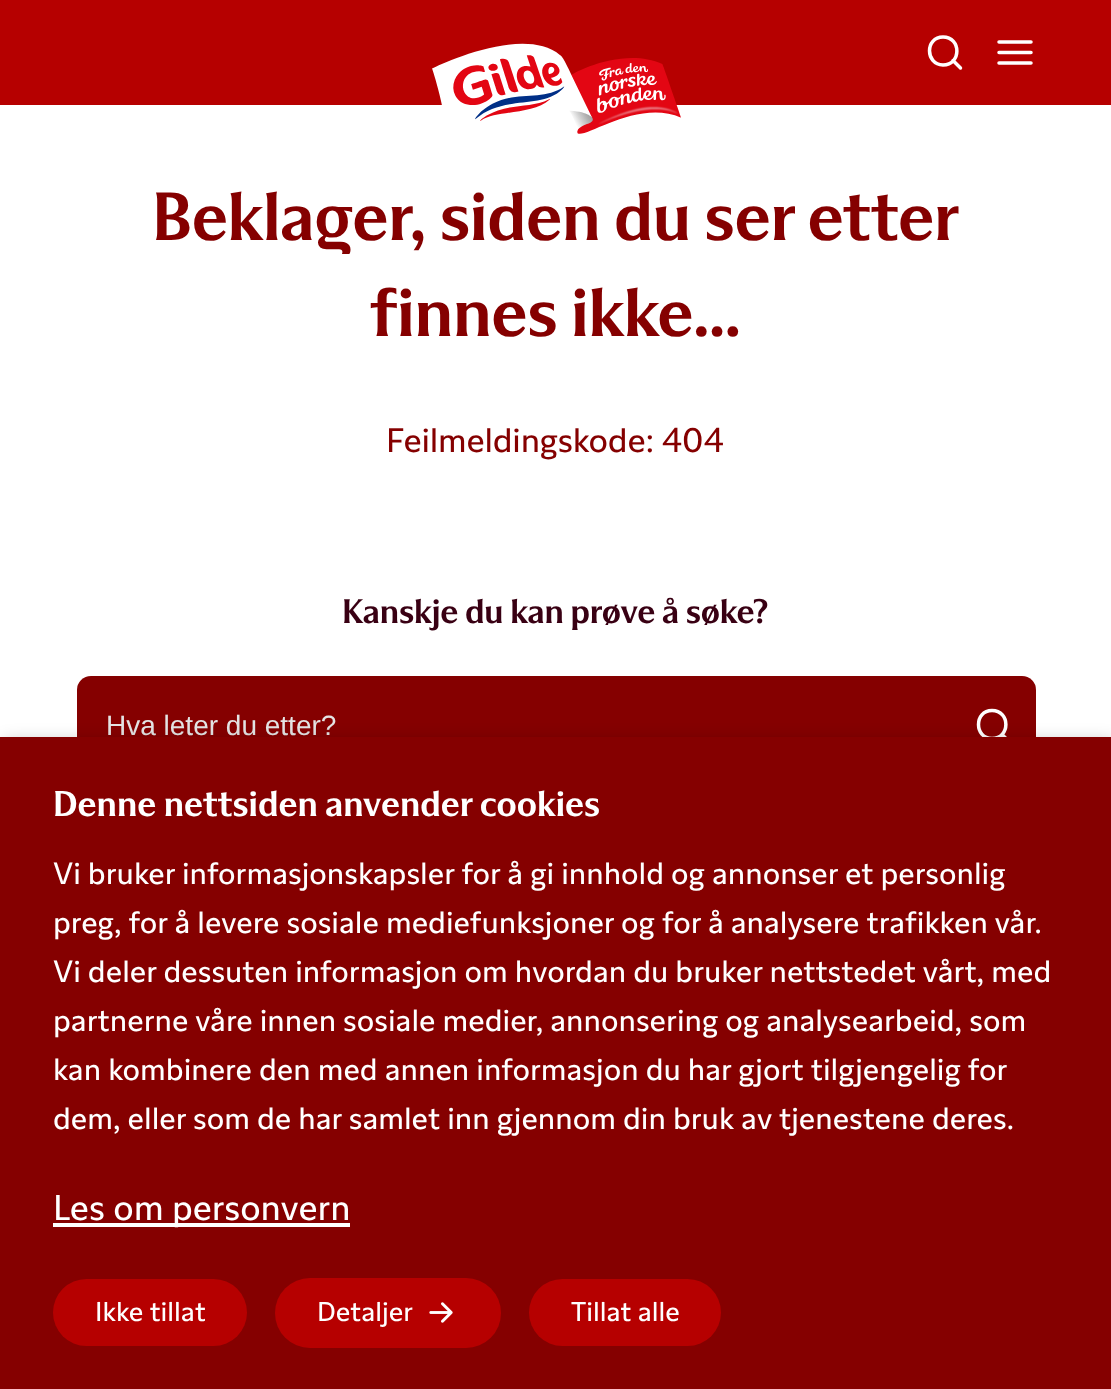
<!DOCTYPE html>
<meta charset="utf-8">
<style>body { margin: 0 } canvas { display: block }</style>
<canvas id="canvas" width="1111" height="1389"></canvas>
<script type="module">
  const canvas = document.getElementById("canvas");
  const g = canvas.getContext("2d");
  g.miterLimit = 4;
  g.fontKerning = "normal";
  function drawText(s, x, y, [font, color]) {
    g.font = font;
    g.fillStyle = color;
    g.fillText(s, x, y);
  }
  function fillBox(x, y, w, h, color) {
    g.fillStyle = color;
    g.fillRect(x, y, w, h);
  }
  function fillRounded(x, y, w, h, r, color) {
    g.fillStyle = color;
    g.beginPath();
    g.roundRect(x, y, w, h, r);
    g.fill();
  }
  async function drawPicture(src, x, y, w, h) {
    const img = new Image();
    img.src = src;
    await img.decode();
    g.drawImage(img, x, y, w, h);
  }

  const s1 = ["bold 70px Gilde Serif", "#850000"];
  const s2 = ["35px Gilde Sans", "#850000"];
  const s3 = ["bold 35px Gilde Serif", "#390013"];
  const s4 = ["28px Liberation Sans", "#E4E4E4"];
  const s5 = ["bold 36.75px Gilde Serif", "#FFFFFF"];
  const s6 = ["31.5px Gilde Sans", "#FFFFFF"];
  const s7 = ["36.75px Gilde Sans", "#FFFFFF"];
  const s8 = ["28px Gilde Sans", "#FFFFFF"];

  fillBox(0, 0, 1111, 1389, "#B60000");
  fillBox(0, 105, 1111, 632, "#FFFFFF");
  await drawPicture("pic1.png", 432, 43, 249, 91);
  g.beginPath();
  g.moveTo(943, 37);
  g.bezierCurveTo(925, 37, 925, 64.5, 943, 65);
  g.bezierCurveTo(961.5, 65, 961.5, 37, 943, 37);
  g.closePath();
  g.moveTo(960.5, 68);
  g.lineTo(953, 60.5);
  g.strokeStyle = "#FFFFFF";
  g.lineWidth = 3.5;
  g.lineCap = "round";
  g.lineJoin = "round";
  g.stroke();
  g.beginPath();
  g.moveTo(999, 52.5);
  g.lineTo(1031, 52.5);
  g.moveTo(999, 42);
  g.lineTo(1031, 42);
  g.moveTo(999, 63);
  g.lineTo(1031, 63);
  g.stroke();
  g.letterSpacing = "-0.35px";
  drawText("Beklager, siden du ser etter", 152, 240, s1);
  drawText("finnes ikke...", 370, 336, s1);
  g.letterSpacing = "-0.2px";
  drawText("Feilmeldingskode: 404", 386, 452, s2);
  drawText("Kanskje du kan prøve å søke?", 342, 623, s3);
  fillRounded(77, 676, 959, 101, 14, "#850000");
  g.letterSpacing = "0px";
  drawText("Hva leter du etter?", 106, 735, s4);
  g.beginPath();
  g.moveTo(992, 710.5);
  g.bezierCurveTo(974, 710.5, 974, 738.5, 992, 738.5);
  g.bezierCurveTo(1010.5, 738.5, 1010.5, 710.5, 992, 710.5);
  g.closePath();
  g.moveTo(1009.5, 742);
  g.lineTo(1002, 734.5);
  g.stroke();
  g.fillStyle = "rgba(0, 0, 0, 0.21)";
  g.filter = "blur(8px)";
  g.beginPath();
  g.rect(4, 740, 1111, 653);
  g.fill();
  g.filter = "none";
  fillBox(0, 737, 1111, 652, "#850000");
  drawText("Denne nettsiden anvender cookies", 53, 816, s5);
  drawText("Vi bruker informasjonskapsler for å gi innhold og annonser et personlig", 53, 884, s6);
  drawText("preg, for å levere sosiale mediefunksjoner og for å analysere trafikken vår.", 53, 933, s6);
  drawText("Vi deler dessuten informasjon om hvordan du bruker nettstedet vårt, med", 53, 982, s6);
  drawText("partnerne våre innen sosiale medier, annonsering og analysearbeid, som", 53, 1031, s6);
  drawText("kan kombinere den med annen informasjon du har gjort tilgjengelig for", 53, 1080, s6);
  drawText("dem, eller som de har samlet inn gjennom din bruk av tjenestene deres.", 53, 1129, s6);
  fillBox(53, 1223, 297, 4, "#FFFFFF");
  drawText("Les om personvern", 53, 1220, s7);
  fillRounded(53, 1279, 194, 67, 33.5, "#B60000");
  drawText("Ikke tillat", 95, 1321, s8);
  fillRounded(275, 1278, 226, 70, 35, "#B60000");
  drawText("Detaljer", 317, 1321, s8);
  await drawPicture("pic2.png", 429, 1302, 24, 21);
  fillRounded(529, 1279, 192, 67, 33.5, "#B60000");
  drawText("Tillat alle", 571, 1321, s8);
</script>
